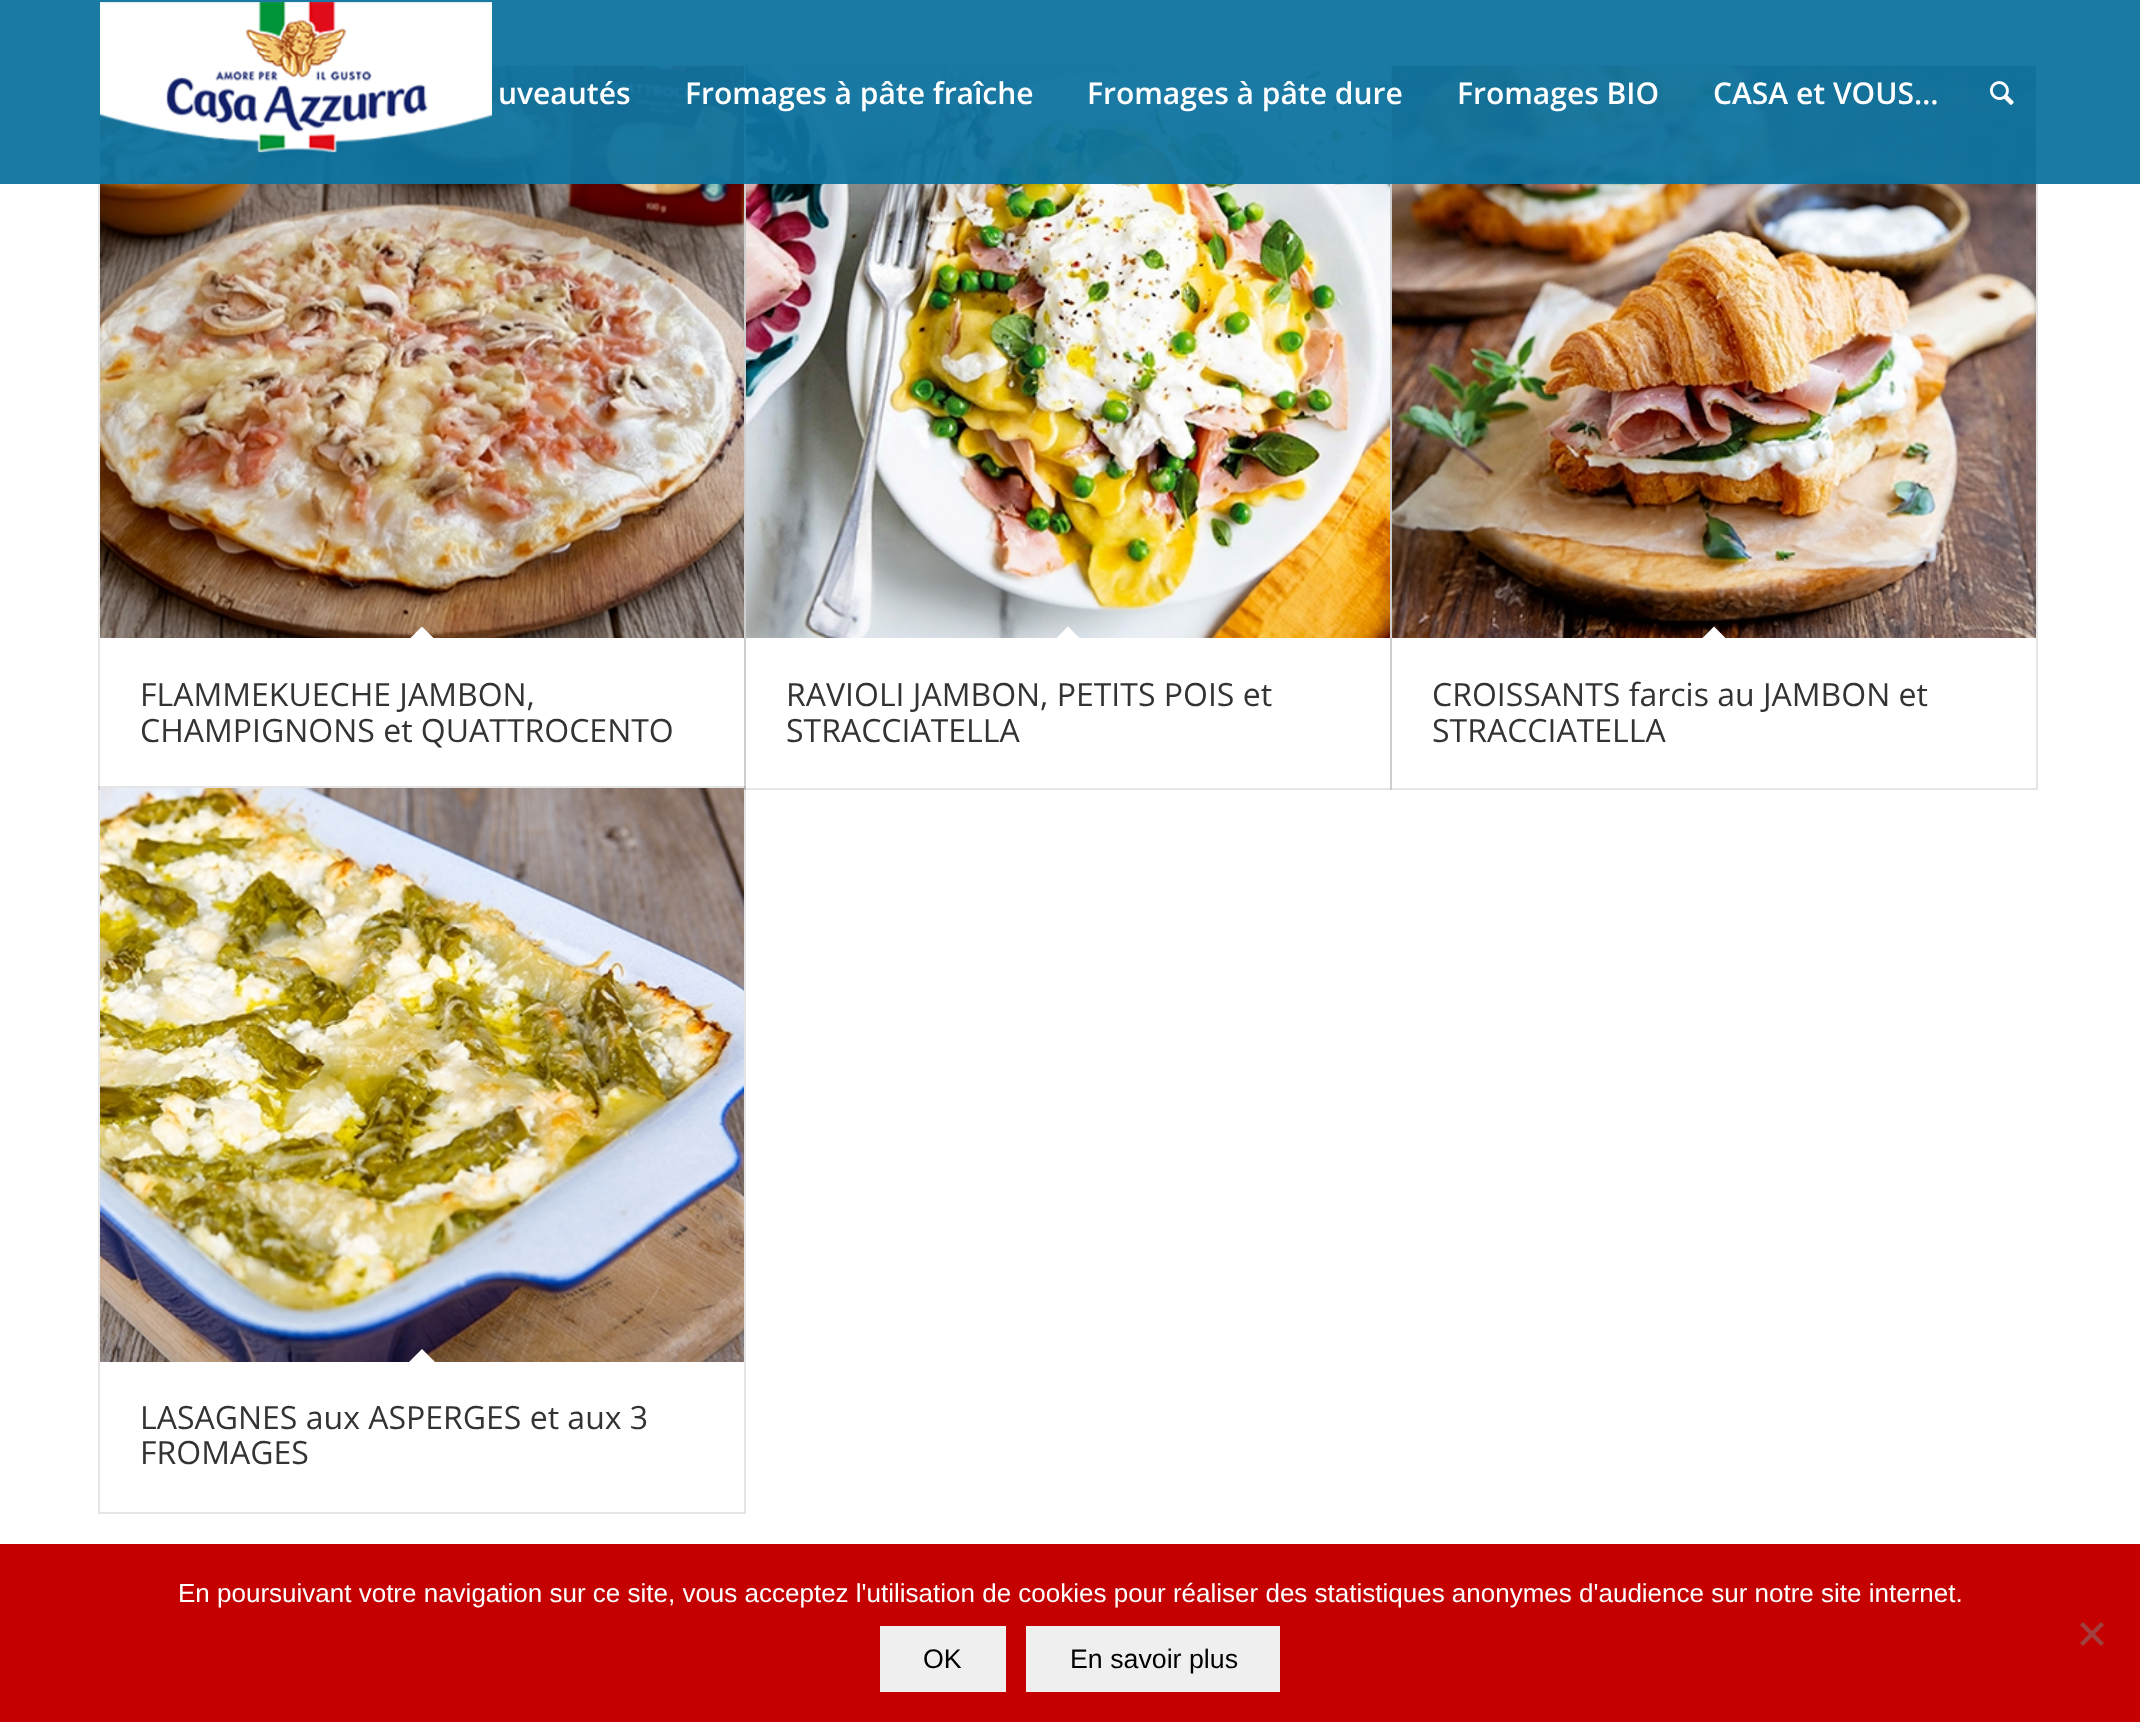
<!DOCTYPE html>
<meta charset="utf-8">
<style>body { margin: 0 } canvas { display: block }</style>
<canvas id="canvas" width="2140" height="1722"></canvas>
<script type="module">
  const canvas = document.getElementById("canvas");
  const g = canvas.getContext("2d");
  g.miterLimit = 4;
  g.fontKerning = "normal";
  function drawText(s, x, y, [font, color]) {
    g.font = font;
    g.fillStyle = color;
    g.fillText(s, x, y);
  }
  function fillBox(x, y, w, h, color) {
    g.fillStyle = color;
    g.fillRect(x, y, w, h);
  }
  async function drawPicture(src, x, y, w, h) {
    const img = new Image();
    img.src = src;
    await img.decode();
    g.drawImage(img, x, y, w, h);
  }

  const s1 = ["600 30px Open Sans", "#FFFFFF"];
  const s2 = ["32px Open Sans", "#333333"];
  const s3 = ["26px Liberation Sans", "#FFFFFF"];
  const s4 = ["26.75px Liberation Sans", "#000000"];

  fillBox(0, 0, 2140, 1722, "#FFFFFF");
  g.strokeStyle = "#E6E6E6";
  g.lineWidth = 2;
  g.strokeRect(99, 65, 646, 724);
  await drawPicture("pic3.png", 100, 66, 644, 572);
  g.strokeStyle = "rgba(0, 0, 0, 0.1)";
  g.strokeRect(745, 65, 646, 724);
  await drawPicture("pic4.png", 746, 66, 644, 572);
  g.strokeRect(1391, 65, 646, 724);
  await drawPicture("pic5.png", 1392, 66, 644, 572);
  fillBox(0, 0, 2140, 184, "rgba(14, 115, 159, 0.95)");
  await drawPicture("pic1.png", 100, 2, 392, 151);
  drawText("uveautés", 498, 104, s1);
  drawText("Fromages à pâte fraîche", 685, 104, s1);
  drawText("Fromages à pâte dure", 1087, 104, s1);
  drawText("Fromages BIO", 1457, 104, s1);
  drawText("CASA et VOUS…", 1713, 104, s1);
  await drawPicture("pic2.png", 1990, 81, 24, 24);
  g.beginPath();
  g.moveTo(422, 626.5);
  g.lineTo(436, 640.5);
  g.lineTo(422, 654.5);
  g.lineTo(408, 640.5);
  g.closePath();
  g.fill();
  drawText("FLAMMEKUECHE JAMBON,", 140, 706, s2);
  drawText("CHAMPIGNONS et QUATTROCENTO", 140, 742, s2);
  g.fillStyle = "#FFFFFF";
  g.beginPath();
  g.moveTo(1068, 626.5);
  g.lineTo(1082, 640.5);
  g.lineTo(1068, 654.5);
  g.lineTo(1054, 640.5);
  g.closePath();
  g.fill();
  drawText("RAVIOLI JAMBON, PETITS POIS et", 786, 706, s2);
  drawText("STRACCIATELLA", 786, 742, s2);
  g.fillStyle = "#FFFFFF";
  g.beginPath();
  g.moveTo(1714, 626.5);
  g.lineTo(1728, 640.5);
  g.lineTo(1714, 654.5);
  g.lineTo(1700, 640.5);
  g.closePath();
  g.fill();
  drawText("CROISSANTS farcis au JAMBON et", 1432, 706, s2);
  drawText("STRACCIATELLA", 1432, 742, s2);
  g.strokeRect(99, 787, 646, 726);
  await drawPicture("pic6.png", 100, 788, 644, 574);
  g.fillStyle = "#FFFFFF";
  g.beginPath();
  g.moveTo(422, 1349);
  g.lineTo(436, 1363);
  g.lineTo(422, 1377.5);
  g.lineTo(408, 1363);
  g.closePath();
  g.fill();
  drawText("LASAGNES aux ASPERGES et aux 3", 140, 1429, s2);
  drawText("FROMAGES", 140, 1464, s2);
  fillBox(0, 1544, 2140, 178, "#C40000");
  drawText("En poursuivant votre navigation sur ce site, vous acceptez l'utilisation de cookies pour réaliser des statistiques anonymes d'audience sur notre site internet.", 178, 1602, s3);
  g.fillStyle = "#A24040";
  g.beginPath();
  g.moveTo(2101, 1622);
  g.lineTo(2104, 1625);
  g.lineTo(2083, 1646);
  g.lineTo(2080, 1643);
  g.closePath();
  g.fill();
  g.beginPath();
  g.moveTo(2080, 1625);
  g.lineTo(2083, 1622);
  g.lineTo(2104, 1643);
  g.lineTo(2101, 1646);
  g.closePath();
  g.fill();
  fillBox(880, 1626, 126, 66, "#EFEFEF");
  drawText("OK", 923, 1668, s4);
  fillBox(1026, 1626, 254, 66, "#EFEFEF");
  drawText("En savoir plus", 1070, 1668, s4);
</script>
